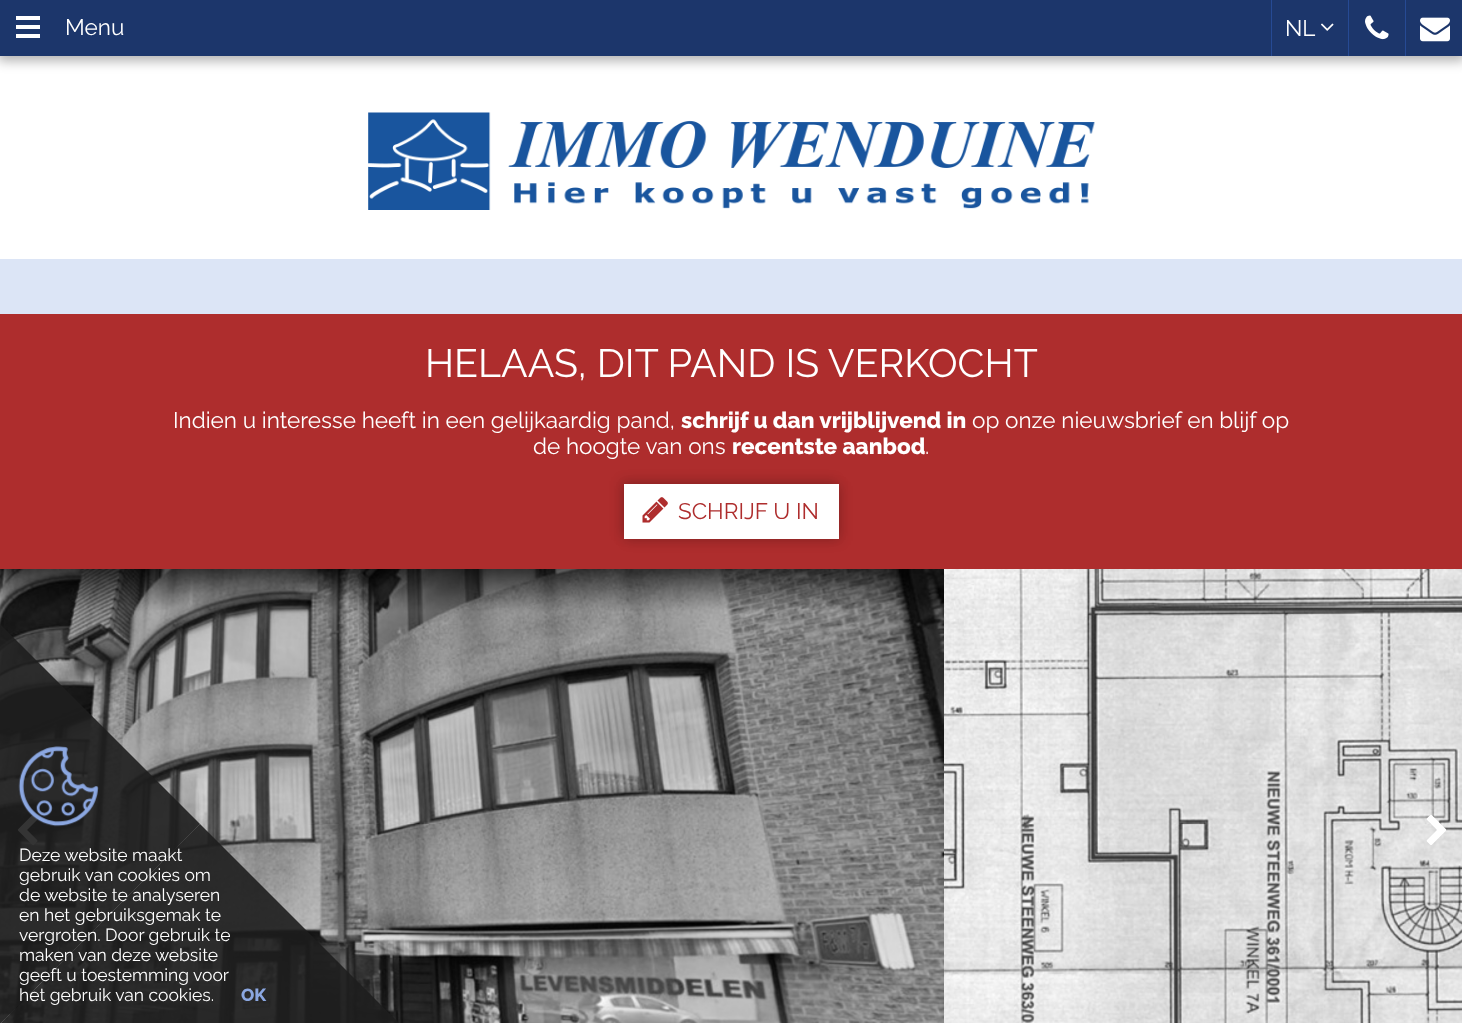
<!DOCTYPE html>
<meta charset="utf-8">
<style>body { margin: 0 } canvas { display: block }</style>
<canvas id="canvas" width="1462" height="1023"></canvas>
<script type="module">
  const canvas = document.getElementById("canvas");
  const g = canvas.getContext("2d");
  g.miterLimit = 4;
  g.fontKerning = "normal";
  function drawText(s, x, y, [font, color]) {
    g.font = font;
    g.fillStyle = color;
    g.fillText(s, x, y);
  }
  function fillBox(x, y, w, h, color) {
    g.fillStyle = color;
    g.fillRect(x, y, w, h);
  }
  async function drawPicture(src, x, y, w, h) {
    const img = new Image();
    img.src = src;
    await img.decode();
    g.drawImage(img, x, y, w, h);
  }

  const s1 = ["22.5px Raleway", "#FFFFFF"];
  const s2 = ["39.4px Raleway", "#FFFFFF"];
  const s3 = ["800 22.5px Raleway", "#FFFFFF"];
  const s4 = ["22.5px Raleway", "#AE2D2D"];
  const s5 = ["17.5px Raleway", "#FFFFFF"];
  const s6 = ["800 17.5px Raleway", "#8BA7E1"];

  fillBox(0, 0, 1462, 1023, "#FFFFFF");
  g.fillStyle = "rgba(0, 0, 0, 0.3)";
  g.filter = "blur(6px)";
  g.beginPath();
  g.rect(-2, 0, 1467, 61);
  g.fill();
  g.filter = "none";
  fillBox(0, 0, 1462, 56, "#1C366B");
  fillBox(16, 25, 24, 4, "#FFFFFF");
  fillBox(16, 16, 24, 4, "#FFFFFF");
  fillBox(16, 34, 24, 4, "#FFFFFF");
  drawText("Menu", 65, 35, s1);
  fillBox(1271, 0, 1, 56, "#264A94");
  drawText("NL", 1285, 36, s1);
  await drawPicture("pic1.png", 1321, 23, 13, 8);
  fillBox(1348, 0, 1, 56, "#264A94");
  await drawPicture("pic2.png", 1365, 15, 24, 25);
  fillBox(1405, 0, 1, 56, "#264A94");
  await drawPicture("pic3.png", 1420, 17, 30, 25);
  await drawPicture("pic4.png", 368, 112, 727, 98);
  fillBox(0, 259, 1462, 55, "#DCE5F6");
  fillBox(0, 314, 1462, 255, "#AE2D2D");
  drawText("HELAAS, DIT PAND IS VERKOCHT", 425, 377, s2);
  drawText("Indien u interesse heeft in een gelijkaardig pand,", 173, 428, s1);
  drawText("schrijf u dan vrijblijvend in", 681, 428, s3);
  drawText("op onze nieuwsbrief en blijf op", 972, 428, s1);
  drawText("de hoogte van ons", 533, 454, s1);
  drawText("recentste aanbod", 732, 454, s3);
  drawText(".", 925, 454, s1);
  g.fillStyle = "rgba(0, 0, 0, 0.15)";
  g.filter = "blur(6px)";
  g.beginPath();
  g.rect(621, 481, 215, 55);
  g.fill();
  g.filter = "none";
  g.filter = "blur(6px)";
  g.beginPath();
  g.rect(626, 486, 215, 55);
  g.fill();
  g.filter = "none";
  fillBox(624, 484, 215, 55, "#FFFFFF");
  await drawPicture("pic5.png", 642, 497, 26, 26);
  drawText("SCHRIJF U IN", 678, 519, s4);
  await drawPicture("pic6.png", 0, 569, 944, 454);
  await drawPicture("pic7.png", 944, 569, 518, 454);
  await drawPicture("pic8.png", 17, 814, 21, 32);
  await drawPicture("pic9.png", 1426, 814, 21, 31);
  g.fillStyle = "rgba(30, 30, 30, 0.9)";
  g.beginPath();
  g.moveTo(400, 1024);
  g.lineTo(0, 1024);
  g.lineTo(200, 824);
  g.closePath();
  g.fill();
  g.beginPath();
  g.moveTo(0, 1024);
  g.lineTo(0, 624);
  g.lineTo(200, 824);
  g.closePath();
  g.fill();
  await drawPicture("pic10.png", 18, 746, 81, 81);
  drawText("Deze website maakt", 19, 861, s5);
  drawText("gebruik van cookies om", 19, 881, s5);
  drawText("de website te analyseren", 19, 901, s5);
  drawText("en het gebruiksgemak te", 19, 921, s5);
  drawText("vergroten. Door gebruik te", 19, 941, s5);
  drawText("maken van deze website", 19, 961, s5);
  drawText("geeft u toestemming voor", 19, 981, s5);
  drawText("het gebruik van cookies.", 19, 1001, s5);
  drawText("OK", 241, 1001, s6);
</script>
